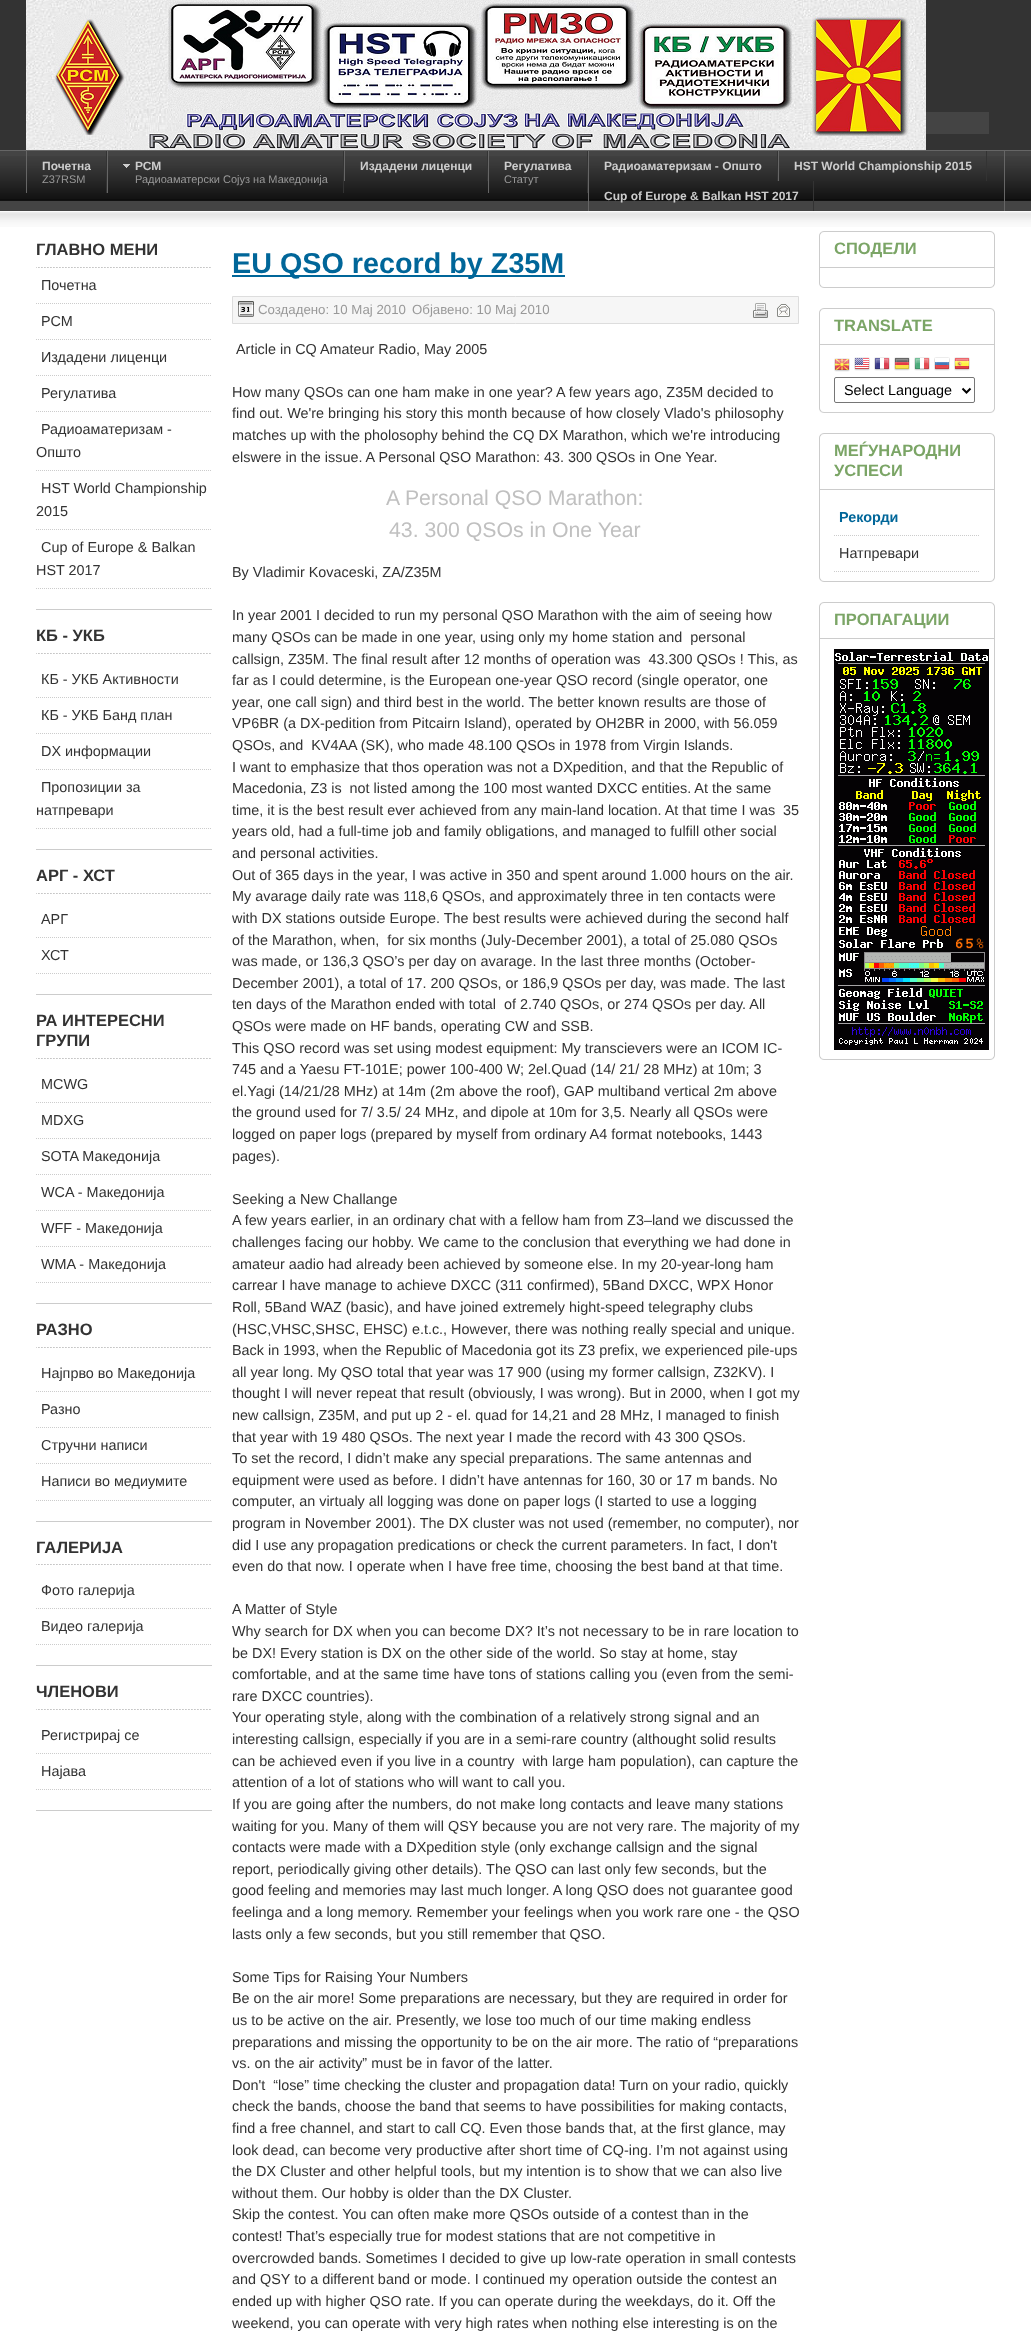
<!DOCTYPE html>
<meta charset="utf-8">
<style>body { margin: 0 } canvas { display: block }</style>
<canvas id="canvas" width="1031" height="2338"></canvas>
<script type="module">
  const canvas = document.getElementById("canvas");
  const g = canvas.getContext("2d");
  g.miterLimit = 4;
  g.fontKerning = "normal";
  function drawText(s, x, y, [font, color]) {
    g.font = font;
    g.fillStyle = color;
    g.fillText(s, x, y);
  }
  function fillBox(x, y, w, h, color) {
    g.fillStyle = color;
    g.fillRect(x, y, w, h);
  }
  async function drawPicture(src, x, y, w, h) {
    const img = new Image();
    img.src = src;
    await img.decode();
    g.drawImage(img, x, y, w, h);
  }

  const s1 = ["bold 12px Liberation Sans", "#CCCCCC"];
  const s2 = ["11px Liberation Sans", "#999999"];
  const s3 = ["bold 16.5px Liberation Sans", "#333333"];
  const s4 = ["14.4px Liberation Sans", "#333333"];
  const s5 = ["bold 28.75px Liberation Sans", "#006699"];
  const s6 = ["13.25px Liberation Sans", "#999999"];
  const s7 = ["21.25px Liberation Sans", "#C0C0C0"];
  const s8 = ["bold 16.5px Liberation Sans", "#7BA566"];
  const s9 = ["14.4px Liberation Sans", "#000000"];
  const s10 = ["bold 14.4px Liberation Sans", "#006699"];

  fillBox(0, 0, 1031, 2338, "#FFFFFF");
  fillBox(0, 0, 1031, 150, "#333333");
  await drawPicture("pic1.png", 26, 0, 900, 150);
  fillBox(926, 112, 63, 22, "#444444");
  fillBox(0, 151, 1031, 60, "#444444");
  await drawPicture("pic2.png", 0, 156, 1031, 45);
  fillBox(0, 150, 1031, 1, "#666666");
  fillBox(1004, 151, 1, 60, "#666666");
  fillBox(106, 151, 1, 42, "#333333");
  fillBox(26, 151, 1, 42, "#666666");
  drawText("Почетна", 42, 170, s1);
  drawText("Z37RSM", 42, 183, s2);
  fillBox(343, 151, 1, 42, "#333333");
  fillBox(107, 151, 1, 42, "#666666");
  await drawPicture("pic3.png", 123, 164, 7, 4);
  drawText("РСМ", 135, 170, s1);
  drawText("Радиоаматерски Сојуз на Македонија", 135, 183, s2);
  fillBox(487, 151, 1, 30, "#333333");
  fillBox(344, 151, 1, 30, "#666666");
  drawText("Издадени лиценци", 360, 170, s1);
  fillBox(587, 151, 1, 42, "#333333");
  fillBox(488, 151, 1, 42, "#666666");
  drawText("Регулатива", 504, 170, s1);
  drawText("Статут", 504, 183, s2);
  fillBox(777, 151, 1, 30, "#333333");
  fillBox(588, 151, 1, 60, "#666666");
  drawText("Радиоаматеризам - Општо", 604, 170, s1);
  fillBox(986, 151, 1, 30, "#333333");
  fillBox(778, 151, 1, 30, "#666666");
  drawText("HST World Championship 2015", 794, 170, s1);
  fillBox(813, 181, 1, 30, "#333333");
  drawText("Cup of Europe & Balkan HST 2017", 604, 200, s1);
  await drawPicture("pic4.png", 0, 211, 1031, 16);
  fillBox(36, 609, 176, 1, "#CCCCCC");
  await drawPicture("pic5.png", 36, 267, 175, 1);
  drawText("ГЛАВНО МЕНИ", 36, 255, s3);
  g.beginPath();
  g.moveTo(36, 303.5);
  g.lineTo(212, 303.5);
  g.strokeStyle = "#CCCCCC";
  g.setLineDash([1, 1]);
  g.stroke();
  drawText("Почетна", 41, 290, s4);
  g.beginPath();
  g.moveTo(36, 339.5);
  g.lineTo(212, 339.5);
  g.stroke();
  drawText("РСМ", 41, 326, s4);
  g.beginPath();
  g.moveTo(36, 375.5);
  g.lineTo(212, 375.5);
  g.stroke();
  drawText("Издадени лиценци", 41, 362, s4);
  g.beginPath();
  g.moveTo(36, 411.5);
  g.lineTo(212, 411.5);
  g.stroke();
  drawText("Регулатива", 41, 398, s4);
  g.beginPath();
  g.moveTo(36, 470.5);
  g.lineTo(212, 470.5);
  g.stroke();
  drawText("Радиоаматеризам -", 41, 434, s4);
  drawText("Општо", 36, 457, s4);
  g.beginPath();
  g.moveTo(36, 529.5);
  g.lineTo(212, 529.5);
  g.stroke();
  drawText("HST World Championship", 41, 493, s4);
  drawText("2015", 36, 516, s4);
  g.beginPath();
  g.moveTo(36, 588.5);
  g.lineTo(212, 588.5);
  g.stroke();
  drawText("Cup of Europe & Balkan", 41, 552, s4);
  drawText("HST 2017", 36, 575, s4);
  fillBox(36, 849, 176, 1, "#CCCCCC");
  await drawPicture("pic5.png", 36, 653, 175, 1);
  drawText("КБ - УКБ", 36, 641, s3);
  g.beginPath();
  g.moveTo(36, 697.5);
  g.lineTo(212, 697.5);
  g.stroke();
  drawText("КБ - УКБ Активности", 41, 684, s4);
  g.beginPath();
  g.moveTo(36, 733.5);
  g.lineTo(212, 733.5);
  g.stroke();
  drawText("КБ - УКБ Банд план", 41, 720, s4);
  g.beginPath();
  g.moveTo(36, 769.5);
  g.lineTo(212, 769.5);
  g.stroke();
  drawText("DX информации", 41, 756, s4);
  g.beginPath();
  g.moveTo(36, 828.5);
  g.lineTo(212, 828.5);
  g.stroke();
  drawText("Пропозиции за", 41, 792, s4);
  drawText("натпревари", 36, 815, s4);
  fillBox(36, 994, 176, 1, "#CCCCCC");
  await drawPicture("pic5.png", 36, 893, 175, 1);
  drawText("АРГ - ХСТ", 36, 881, s3);
  g.beginPath();
  g.moveTo(36, 937.5);
  g.lineTo(212, 937.5);
  g.stroke();
  drawText("АРГ", 41, 924, s4);
  g.beginPath();
  g.moveTo(36, 973.5);
  g.lineTo(212, 973.5);
  g.stroke();
  drawText("ХСТ", 41, 960, s4);
  fillBox(36, 1303, 176, 1, "#CCCCCC");
  await drawPicture("pic5.png", 36, 1058, 175, 1);
  drawText("РА ИНТЕРЕСНИ", 36, 1026, s3);
  drawText("ГРУПИ", 36, 1046, s3);
  g.beginPath();
  g.moveTo(36, 1102.5);
  g.lineTo(212, 1102.5);
  g.stroke();
  drawText("MCWG", 41, 1089, s4);
  g.beginPath();
  g.moveTo(36, 1138.5);
  g.lineTo(212, 1138.5);
  g.stroke();
  drawText("MDXG", 41, 1125, s4);
  g.beginPath();
  g.moveTo(36, 1174.5);
  g.lineTo(212, 1174.5);
  g.stroke();
  drawText("SOTA Македонија", 41, 1161, s4);
  g.beginPath();
  g.moveTo(36, 1210.5);
  g.lineTo(212, 1210.5);
  g.stroke();
  drawText("WCA - Македонија", 41, 1197, s4);
  g.beginPath();
  g.moveTo(36, 1246.5);
  g.lineTo(212, 1246.5);
  g.stroke();
  drawText("WFF - Македонија", 41, 1233, s4);
  g.beginPath();
  g.moveTo(36, 1282.5);
  g.lineTo(212, 1282.5);
  g.stroke();
  drawText("WMA - Македонија", 41, 1269, s4);
  fillBox(36, 1521, 176, 1, "#CCCCCC");
  await drawPicture("pic5.png", 36, 1347, 175, 1);
  drawText("РАЗНО", 36, 1335, s3);
  g.beginPath();
  g.moveTo(36, 1391.5);
  g.lineTo(212, 1391.5);
  g.stroke();
  drawText("Најпрво во Македонија", 41, 1378, s4);
  g.beginPath();
  g.moveTo(36, 1427.5);
  g.lineTo(212, 1427.5);
  g.stroke();
  drawText("Разно", 41, 1414, s4);
  g.beginPath();
  g.moveTo(36, 1463.5);
  g.lineTo(212, 1463.5);
  g.stroke();
  drawText("Стручни написи", 41, 1450, s4);
  g.beginPath();
  g.moveTo(36, 1500.5);
  g.lineTo(212, 1500.5);
  g.stroke();
  drawText("Написи во медиумите", 41, 1486, s4);
  fillBox(36, 1665, 176, 1, "#CCCCCC");
  await drawPicture("pic5.png", 36, 1564, 175, 1);
  drawText("ГАЛЕРИЈА", 36, 1553, s3);
  g.beginPath();
  g.moveTo(36, 1608.5);
  g.lineTo(212, 1608.5);
  g.stroke();
  drawText("Фото галерија", 41, 1595, s4);
  g.beginPath();
  g.moveTo(36, 1644.5);
  g.lineTo(212, 1644.5);
  g.stroke();
  drawText("Видео галерија", 41, 1631, s4);
  fillBox(36, 1810, 176, 1, "#CCCCCC");
  await drawPicture("pic5.png", 36, 1709, 175, 1);
  drawText("ЧЛЕНОВИ", 36, 1697, s3);
  g.beginPath();
  g.moveTo(36, 1753.5);
  g.lineTo(212, 1753.5);
  g.stroke();
  drawText("Регистрирај се", 41, 1740, s4);
  g.beginPath();
  g.moveTo(36, 1789.5);
  g.lineTo(212, 1789.5);
  g.stroke();
  drawText("Најава", 41, 1776, s4);
  fillBox(232, 275, 333, 2, "#006699");
  drawText("EU QSO record by Z35M", 232, 273, s5);
  g.fillStyle = "#F6F6F6";
  g.beginPath();
  g.rect(232.5, 296.5, 566, 27);
  g.fill();
  g.strokeStyle = "#DDDDDD";
  g.setLineDash([]);
  g.stroke();
  await drawPicture("pic6.png", 238, 301, 16, 16);
  drawText("Создадено: 10 Мај 2010", 258, 314, s6);
  drawText("Објавено: 10 Мај 2010", 412, 314, s6);
  await drawPicture("pic7.png", 753, 303, 15, 15);
  await drawPicture("pic8.png", 777, 304, 13, 13);
  drawText("Аrticle in CQ Amateur Radio, May 2005", 236, 354, s4);
  drawText("How many QSOs can one ham make in one year? A few years ago, Z35M decided to", 232, 397, s4);
  drawText("find out. We're bringing his story this month because of how closely Vlado's philosophy", 232, 418, s4);
  drawText("matches up with the pholosophy behind the CQ DX Marathon, which we're introducing", 232, 440, s4);
  drawText("elswere in the issue. A Personal QSO Marathon: 43. 300 QSOs in One Year.", 232, 462, s4);
  drawText("A Personal QSO Marathon:", 386, 505, s7);
  drawText("43. 300 QSOs in One Year", 389, 537, s7);
  drawText("By Vladimir Kovaceski, ZA/Z35M", 232, 577, s4);
  drawText("In year 2001 I decided to run my personal QSO Marathon with the aim of seeing how", 232, 620, s4);
  drawText("many QSOs can be made in one year, using only my home station and  personal", 232, 642, s4);
  drawText("callsign, Z35M. The final result after 12 months of operation was  43.300 QSOs ! This, as", 232, 664, s4);
  drawText("far as I could determine, is the European one-year QSO record (single operator, one", 232, 685, s4);
  drawText("year, one call sign) and third best in the world. The better known results are those of", 232, 707, s4);
  drawText("VP6BR (a DX-pedition from Pitcairn Island), operated by OH2BR in 2000, with 56.059", 232, 728, s4);
  drawText("QSOs, and  KV4AA (SK), who made 48.100 QSOs in 1978 from Virgin Islands.", 232, 750, s4);
  drawText("I want to emphasize that thos operation was not a DXpedition, and that the Republic of", 232, 772, s4);
  drawText("Macedonia, Z3 is  not listed among the 100 most wanted DXCC entities. At the same", 232, 793, s4);
  drawText("time, it is the best result ever achieved from any main-land location. At that time I was  35", 232, 815, s4);
  drawText("years old, had a full-time job and family obligations, and managed to fulfill other social", 232, 836, s4);
  drawText("and personal activities.", 232, 858, s4);
  drawText("Out of 365 days in the year, I was active in 350 and spent around 1.000 hours on the air.", 232, 880, s4);
  drawText("My avarage daily rate was 118,6 QSOs, and approximately three in ten contacts were", 232, 901, s4);
  drawText("with DX stations outside Europe. The best results were achieved during the second half", 232, 923, s4);
  drawText("of the Marathon, when,  for six months (July-December 2001), a total of 25.080 QSOs", 232, 945, s4);
  drawText("was made, or 136,3 QSO’s per day on avarage. In the last three months (October-", 232, 966, s4);
  drawText("December 2001), a total of 17. 200 QSOs, or 186,9 QSOs per day, was made. The last", 232, 988, s4);
  drawText("ten days of the Marathon ended with total  of 2.740 QSOs, or 274 QSOs per day. All", 232, 1009, s4);
  drawText("QSOs were made on HF bands, operating CW and SSB.", 232, 1031, s4);
  drawText("This QSO record was set using modest equipment: My transcievers were an ICOM IC-", 232, 1053, s4);
  drawText("745 and a Yaesu FT-101E; power 100-400 W; 2el.Quad (14/ 21/ 28 MHz) at 10m; 3", 232, 1074, s4);
  drawText("el.Yagi (14/21/28 MHz) at 14m (2m above the roof), GAP multiband vertical 2m above", 232, 1096, s4);
  drawText("the ground used for 7/ 3.5/ 24 MHz, and dipole at 10m for 3,5. Nearly all QSOs were", 232, 1117, s4);
  drawText("logged on paper logs (prepared by myself from ordinary A4 format notebooks, 1443", 232, 1139, s4);
  drawText("pages).", 232, 1161, s4);
  drawText("Seeking a New Challange", 232, 1204, s4);
  drawText("A few years earlier, in an ordinary chat with a fellow ham from Z3–land we discussed the", 232, 1225, s4);
  drawText("challenges facing our hobby. We came to the conclusion that everything we had done in", 232, 1247, s4);
  drawText("amateur aadio had already been achieved by someone else. In my 20-year-long ham", 232, 1269, s4);
  drawText("carrear I have manage to achieve DXCC (311 confirmed), 5Band DXCC, WPX Honor", 232, 1290, s4);
  drawText("Roll, 5Band WAZ (basic), and have joined extremely hight-speed telegraphy clubs", 232, 1312, s4);
  drawText("(HSC,VHSC,SHSC, EHSC) e.t.c., However, there was nothing really special and unique.", 232, 1334, s4);
  drawText("Back in 1993, when the Republic of Macedonia got its Z3 prefix, we experienced pile-ups", 232, 1355, s4);
  drawText("all year long. My QSO total that year was 17 900 (using my former callsign, Z32KV). I", 232, 1377, s4);
  drawText("thought I will never repeat that result (obviously, I was wrong). But in 2000, when I got my", 232, 1398, s4);
  drawText("new callsign, Z35M, and put up 2 - el. quad for 14,21 and 28 MHz, I managed to finish", 232, 1420, s4);
  drawText("that year with 19 480 QSOs. The next year I made the record with 43 300 QSOs.", 232, 1442, s4);
  drawText("To set the record, I didn’t make any special preparations. The same antennas and", 232, 1463, s4);
  drawText("equipment were used as before. I didn’t have antennas for 160, 30 or 17 m bands. No", 232, 1485, s4);
  drawText("computer, an virtualy all logging was done on paper logs (I started to use a logging", 232, 1506, s4);
  drawText("program in November 2001). The DX cluster was not used (remember, no computer), nor", 232, 1528, s4);
  drawText("did I use any propagation predications or check the current parameters. In fact, I don't", 232, 1550, s4);
  drawText("even do that now. I operate when I have free time, choosing the best band at that time.", 232, 1571, s4);
  drawText("A Matter of Style", 232, 1614, s4);
  drawText("Why search for DX when you can become DX? It’s not necessary to be in rare location to", 232, 1636, s4);
  drawText("be DX! Every station is DX on the other side of the world. So stay at home, stay", 232, 1658, s4);
  drawText("comfortable, and at the same time have tons of stations calling you (even from the semi-", 232, 1679, s4);
  drawText("rare DXCC countries).", 232, 1701, s4);
  drawText("Your operating style, along with the combination of a relatively strong signal and an", 232, 1722, s4);
  drawText("interesting callsign, especially if you are in a semi-rare country (althought solid results", 232, 1744, s4);
  drawText("can be achieved even if you live in a country  with large ham population), can capture the", 232, 1766, s4);
  drawText("attention of a lot of stations who will want to call you.", 232, 1787, s4);
  drawText("If you are going after the numbers, do not make long contacts and leave many stations", 232, 1809, s4);
  drawText("waiting for you. Many of them will QSY because you are not very rare. The majority of my", 232, 1831, s4);
  drawText("contacts were made with a DXpedition style (only exchange callsign and the signal", 232, 1852, s4);
  drawText("report, periodically giving other details). The QSO can last only few seconds, but the", 232, 1874, s4);
  drawText("good feeling and memories may last much longer. A long QSO does not guarantee good", 232, 1895, s4);
  drawText("feelinga and a long memory. Remember your feelings when you work rare one - the QSO", 232, 1917, s4);
  drawText("lasts only a few seconds, but you still remember that QSO.", 232, 1939, s4);
  drawText("Some Tips for Raising Your Numbers", 232, 1982, s4);
  drawText("Be on the air more! Some preparations are necessary, but they are required in order for", 232, 2003, s4);
  drawText("us to be active on the air. Presently, we lose too much of our time making endless", 232, 2025, s4);
  drawText("preparations and missing the opportunity to be on the air more. The ratio of “preparations", 232, 2047, s4);
  drawText("vs. on the air activity” must be in favor of the latter.", 232, 2068, s4);
  drawText("Don't  “lose” time checking the cluster and propagation data! Turn on your radio, quickly", 232, 2090, s4);
  drawText("check the bands, choose the band that seems to have possibilities for making contacts,", 232, 2111, s4);
  drawText("find a free channel, and start to call CQ. Even those bands that, at the first glance, may", 232, 2133, s4);
  drawText("look dead, can become very productive after short time of CQ-ing. I’m not against using", 232, 2155, s4);
  drawText("the DX Cluster and other helpful tools, but my intention is to show that we can also live", 232, 2176, s4);
  drawText("without them. Our hobby is older than the DX Cluster.", 232, 2198, s4);
  drawText("Skip the contest. You can often make more QSOs outside of a contest than in the", 232, 2219, s4);
  drawText("contest! That’s especially true for modest stations that are not competitive in", 232, 2241, s4);
  drawText("overcrowded bands. Sometimes I decided to give up low-rate operation in small contests", 232, 2263, s4);
  drawText("and QSY to a different band or mode. I continued my operation outside the contest an", 232, 2284, s4);
  drawText("ended up with higher QSO rate. If you can operate during the weekdays, do it. Off the", 232, 2306, s4);
  drawText("weekend, you can operate with very high rates when nothing else interesting is on the", 232, 2328, s4);
  await drawPicture("pic9.png", 824, 262, 171, 26);
  await drawPicture("pic10.png", 819, 262, 5, 26);
  await drawPicture("pic11.png", 824, 231, 171, 31);
  await drawPicture("pic12.png", 819, 231, 5, 31);
  fillBox(819, 267, 176, 1, "#CCCCCC");
  drawText("СПОДЕЛИ", 834, 254, s8);
  await drawPicture("pic13.png", 824, 339, 171, 74);
  await drawPicture("pic14.png", 819, 339, 5, 74);
  await drawPicture("pic11.png", 824, 308, 171, 31);
  await drawPicture("pic12.png", 819, 308, 5, 31);
  fillBox(819, 344, 176, 1, "#CCCCCC");
  drawText("TRANSLATE", 834, 331, s8);
  await drawPicture("pic15.png", 834, 358, 16, 14);
  await drawPicture("pic16.png", 854, 357, 16, 14);
  await drawPicture("pic17.png", 874, 357, 16, 14);
  await drawPicture("pic18.png", 894, 357, 16, 14);
  await drawPicture("pic19.png", 914, 357, 16, 14);
  await drawPicture("pic20.png", 934, 357, 16, 14);
  await drawPicture("pic21.png", 954, 357, 16, 14);
  g.beginPath();
  g.roundRect(834.5, 377.5, 140, 25, 1.5);
  g.strokeStyle = "#767676";
  g.stroke();
  g.beginPath();
  g.moveTo(962.5, 388.5);
  g.lineTo(966.5, 392.5);
  g.lineTo(970.5, 388.5);
  g.strokeStyle = "#000000";
  g.lineWidth = 2;
  g.stroke();
  drawText("Select Language", 844, 395, s9);
  await drawPicture("pic22.png", 824, 464, 171, 118);
  await drawPicture("pic23.png", 819, 464, 5, 118);
  await drawPicture("pic11.png", 824, 433, 171, 31);
  await drawPicture("pic12.png", 819, 433, 5, 31);
  fillBox(819, 489, 176, 1, "#CCCCCC");
  drawText("МЕЃУНАРОДНИ", 834, 456, s8);
  drawText("УСПЕСИ", 834, 476, s8);
  g.beginPath();
  g.moveTo(834, 535.5);
  g.lineTo(980, 535.5);
  g.strokeStyle = "#CCCCCC";
  g.lineWidth = 1;
  g.setLineDash([1, 1]);
  g.stroke();
  drawText("Рекорди", 839, 522, s10);
  g.beginPath();
  g.moveTo(834, 571.5);
  g.lineTo(980, 571.5);
  g.stroke();
  drawText("Натпревари", 839, 558, s4);
  await drawPicture("pic24.png", 824, 633, 171, 427);
  await drawPicture("pic25.png", 819, 633, 5, 427);
  await drawPicture("pic11.png", 824, 602, 171, 31);
  await drawPicture("pic12.png", 819, 602, 5, 31);
  fillBox(819, 638, 176, 1, "#CCCCCC");
  drawText("ПРОПАГАЦИИ", 834, 625, s8);
  await drawPicture("pic26.png", 834, 649, 155, 401);
</script>
